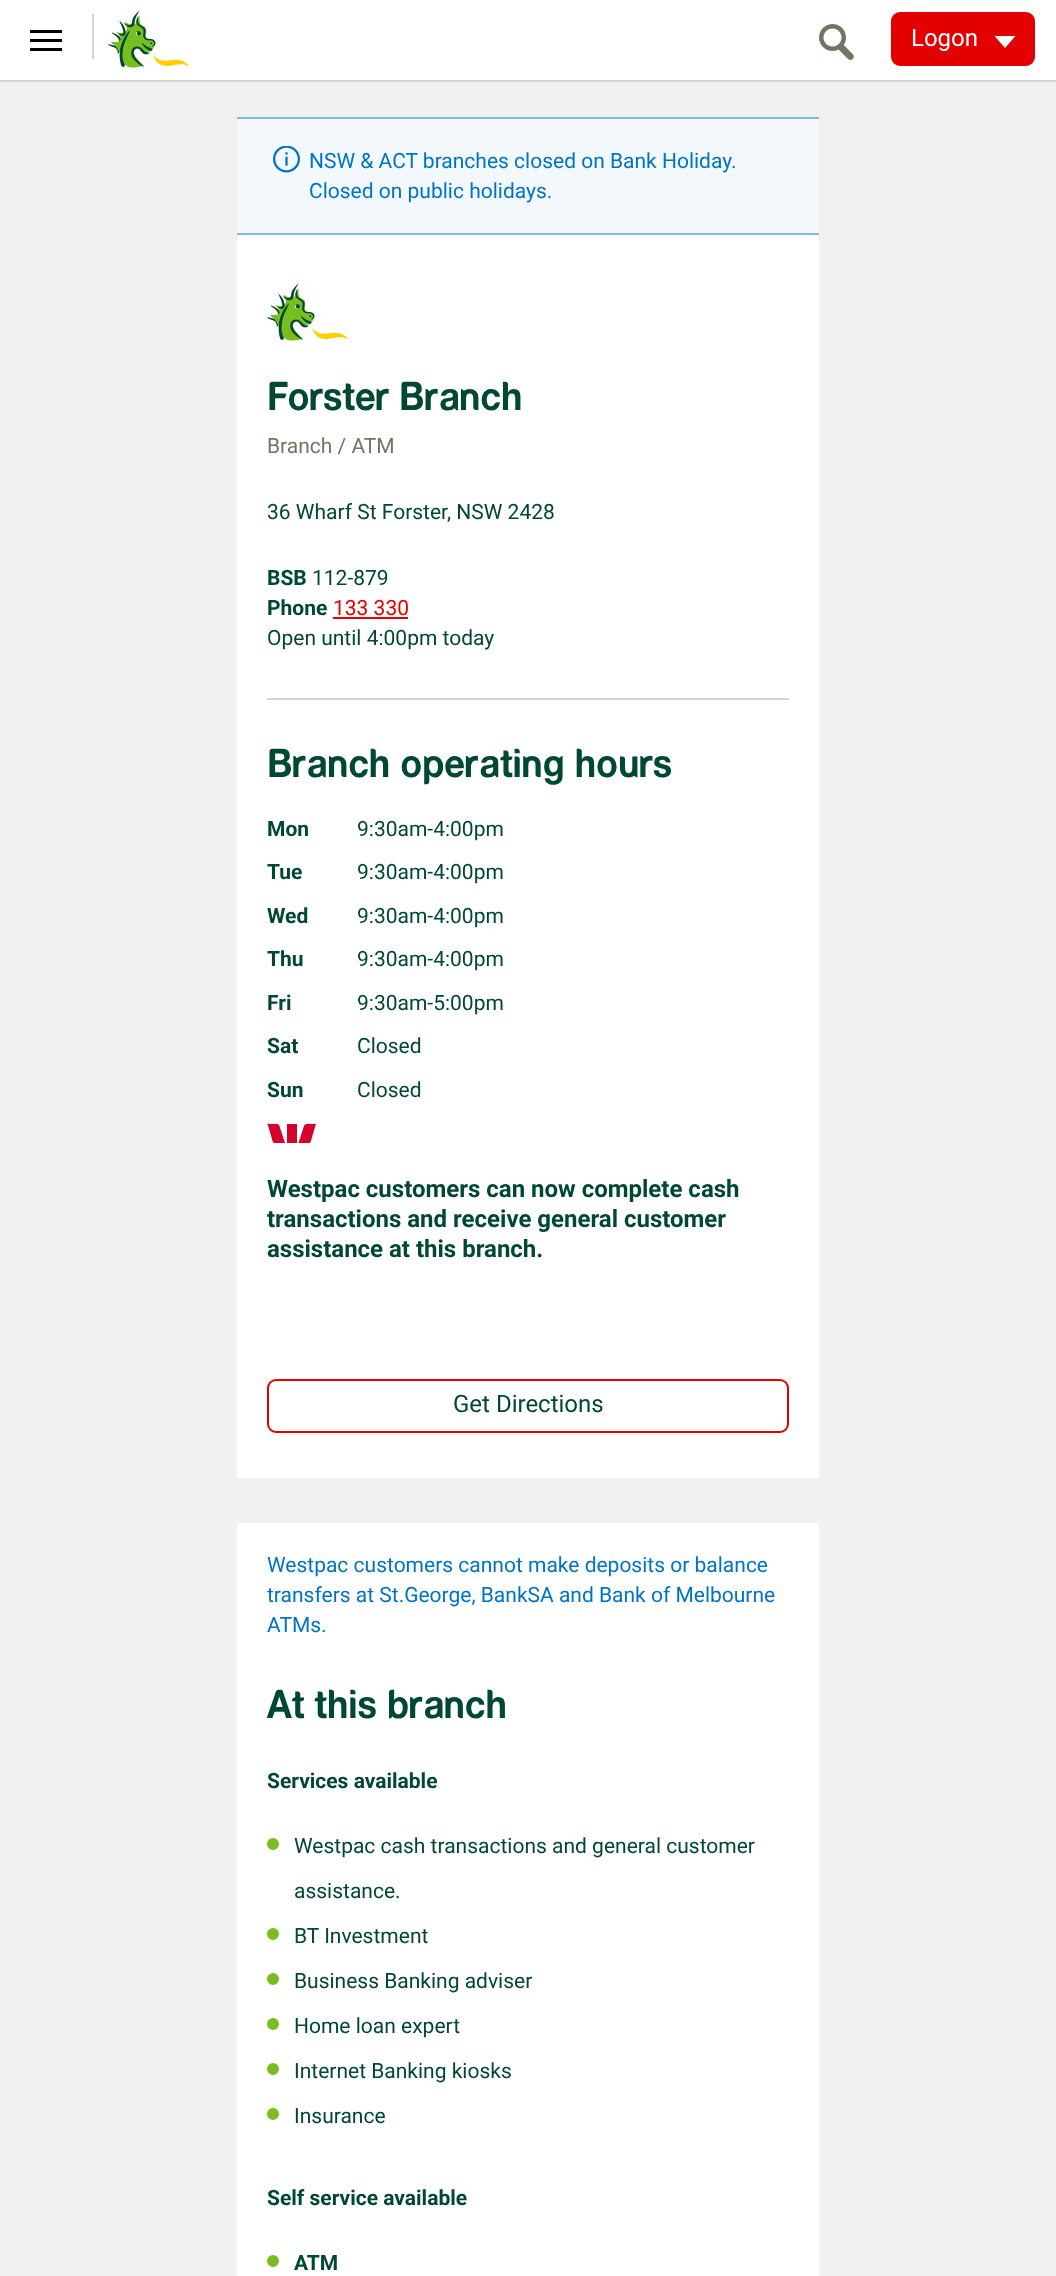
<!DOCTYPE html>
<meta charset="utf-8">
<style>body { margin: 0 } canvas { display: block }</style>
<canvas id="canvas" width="1056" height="2276"></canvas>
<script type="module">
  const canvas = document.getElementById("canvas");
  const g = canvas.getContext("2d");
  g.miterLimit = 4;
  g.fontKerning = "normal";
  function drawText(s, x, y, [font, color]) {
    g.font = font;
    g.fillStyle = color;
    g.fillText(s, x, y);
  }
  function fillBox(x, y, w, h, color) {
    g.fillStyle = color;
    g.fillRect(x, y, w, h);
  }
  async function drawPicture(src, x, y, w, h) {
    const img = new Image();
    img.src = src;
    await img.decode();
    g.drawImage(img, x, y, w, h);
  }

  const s1 = ["24px Roboto", "#FFFFFF"];
  const s2 = ["21px Roboto", "#0074C4"];
  const s3 = ["bold 36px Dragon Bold", "#004833"];
  const s4 = ["21px Roboto", "#757463"];
  const s5 = ["21px Roboto", "#004833"];
  const s6 = ["bold 21px Roboto", "#004833"];
  const s7 = ["21px Roboto", "#E30000"];
  const s8 = ["bold 24px Roboto", "#004833"];
  const s9 = ["24px Roboto", "#004833"];

  fillBox(0, 0, 1056, 2276, "#FFFFFF");
  fillBox(0, 80, 1056, 2, "#D6D5D0");
  fillBox(92, 14, 2, 45, "#D6D5D0");
  fillBox(30, 30, 32, 3, "#000000");
  fillBox(30, 39, 32, 3, "#000000");
  fillBox(30, 48, 32, 3, "#000000");
  await drawPicture("pic1.png", 108, 10, 81, 58);
  await drawPicture("pic2.png", 819, 24, 35, 36);
  g.fillStyle = "#E30000";
  g.beginPath();
  g.roundRect(892, 13, 142, 52, 8);
  g.fill();
  g.strokeStyle = "#E30000";
  g.lineWidth = 2;
  g.stroke();
  drawText("Logon", 911, 46, s1);
  g.beginPath();
  g.moveTo(994.5, 36);
  g.lineTo(1015.5, 36);
  g.lineTo(1005, 48);
  g.closePath();
  g.fill();
  fillBox(0, 82, 1056, 2194, "#F1F1EF");
  fillBox(237, 235, 582, 1243, "#FFFFFF");
  fillBox(237, 119, 582, 114, "#F2F8FC");
  fillBox(237, 117, 582, 2, "#80BAE2");
  fillBox(237, 233, 582, 2, "#80BAE2");
  await drawPicture("pic3.png", 273, 146, 27, 27);
  drawText("NSW & ACT branches closed on Bank Holiday.", 309, 168, s2);
  drawText("Closed on public holidays.", 309, 198, s2);
  await drawPicture("pic1.png", 267, 283, 81, 58);
  drawText("Forster Branch", 267, 410, s3);
  drawText("Branch / ATM", 267, 453, s4);
  drawText("36 Wharf St Forster, NSW 2428", 267, 519, s5);
  drawText("BSB", 267, 585, s6);
  drawText("112-879", 312, 585, s5);
  drawText("Phone", 267, 615, s6);
  drawText("133 330", 333, 615, s7);
  fillBox(333, 617, 75, 2, "#E30000");
  drawText("Open until 4:00pm today", 267, 645, s5);
  fillBox(267, 698, 522, 2, "#D6D5D0");
  drawText("Branch operating hours", 267, 777, s3);
  drawText("Mon", 267, 836, s6);
  drawText("9:30am-4:00pm", 357, 836, s5);
  drawText("Tue", 267, 879, s6);
  drawText("9:30am-4:00pm", 357, 879, s5);
  drawText("Wed", 267, 923, s6);
  drawText("9:30am-4:00pm", 357, 923, s5);
  drawText("Thu", 267, 966, s6);
  drawText("9:30am-4:00pm", 357, 966, s5);
  drawText("Fri", 267, 1010, s6);
  drawText("9:30am-5:00pm", 357, 1010, s5);
  drawText("Sat", 267, 1053, s6);
  drawText("Closed", 357, 1053, s5);
  drawText("Sun", 267, 1097, s6);
  drawText("Closed", 357, 1097, s5);
  await drawPicture("pic4.png", 267, 1123, 50, 20);
  drawText("Westpac customers can now complete cash", 267, 1197, s8);
  drawText("transactions and receive general customer", 267, 1227, s8);
  drawText("assistance at this branch.", 267, 1257, s8);
  g.beginPath();
  g.roundRect(268, 1380, 520, 52, 8);
  g.stroke();
  drawText("Get Directions", 453, 1412, s9);
  fillBox(237, 1523, 582, 753, "#FFFFFF");
  drawText("Westpac customers cannot make deposits or balance", 267, 1572, s2);
  drawText("transfers at St.George, BankSA and Bank of Melbourne", 267, 1602, s2);
  drawText("ATMs.", 267, 1632, s2);
  drawText("At this branch", 267, 1718, s3);
  drawText("Services available", 267, 1788, s6);
  g.fillStyle = "#78BE20";
  g.beginPath();
  g.arc(273, 1844, 5, 0, Math.PI * 2);
  g.fill();
  g.strokeStyle = "#78BE20";
  g.stroke();
  drawText("Westpac cash transactions and general customer", 294, 1853, s5);
  drawText("assistance.", 294, 1898, s5);
  g.fillStyle = "#78BE20";
  g.beginPath();
  g.arc(273, 1934, 5, 0, Math.PI * 2);
  g.fill();
  g.stroke();
  drawText("BT Investment", 294, 1943, s5);
  g.fillStyle = "#78BE20";
  g.beginPath();
  g.arc(273, 1979, 5, 0, Math.PI * 2);
  g.fill();
  g.stroke();
  drawText("Business Banking adviser", 294, 1988, s5);
  g.fillStyle = "#78BE20";
  g.beginPath();
  g.arc(273, 2024, 5, 0, Math.PI * 2);
  g.fill();
  g.stroke();
  drawText("Home loan expert", 294, 2033, s5);
  g.fillStyle = "#78BE20";
  g.beginPath();
  g.arc(273, 2069, 5, 0, Math.PI * 2);
  g.fill();
  g.stroke();
  drawText("Internet Banking kiosks", 294, 2078, s5);
  g.fillStyle = "#78BE20";
  g.beginPath();
  g.arc(273, 2114, 5, 0, Math.PI * 2);
  g.fill();
  g.stroke();
  drawText("Insurance", 294, 2123, s5);
  drawText("Self service available", 267, 2205, s6);
  g.fillStyle = "#78BE20";
  g.beginPath();
  g.arc(273, 2261, 5, 0, Math.PI * 2);
  g.fill();
  g.stroke();
  drawText("ATM", 294, 2270, s6);
</script>
